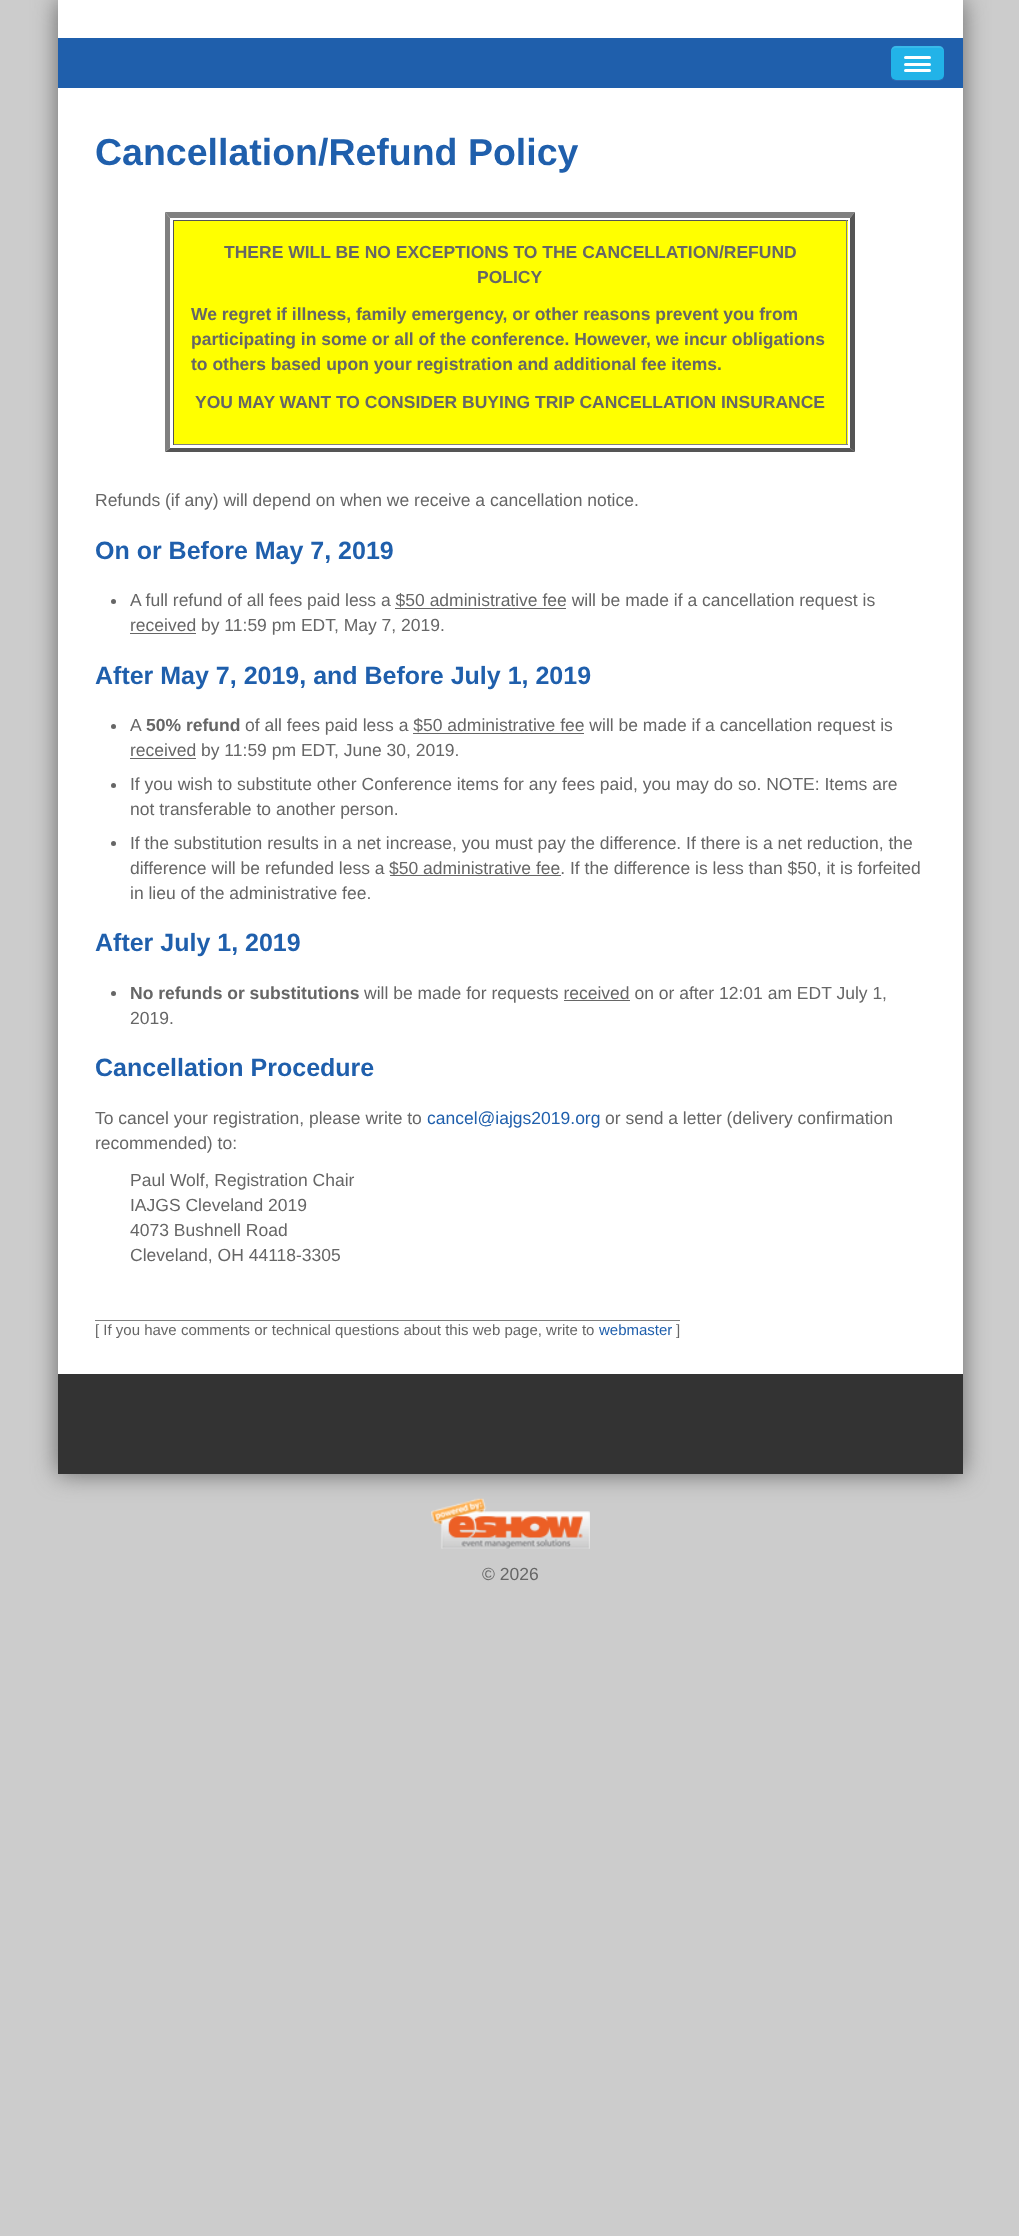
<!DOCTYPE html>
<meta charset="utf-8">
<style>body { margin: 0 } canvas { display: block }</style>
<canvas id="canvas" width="1019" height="2236"></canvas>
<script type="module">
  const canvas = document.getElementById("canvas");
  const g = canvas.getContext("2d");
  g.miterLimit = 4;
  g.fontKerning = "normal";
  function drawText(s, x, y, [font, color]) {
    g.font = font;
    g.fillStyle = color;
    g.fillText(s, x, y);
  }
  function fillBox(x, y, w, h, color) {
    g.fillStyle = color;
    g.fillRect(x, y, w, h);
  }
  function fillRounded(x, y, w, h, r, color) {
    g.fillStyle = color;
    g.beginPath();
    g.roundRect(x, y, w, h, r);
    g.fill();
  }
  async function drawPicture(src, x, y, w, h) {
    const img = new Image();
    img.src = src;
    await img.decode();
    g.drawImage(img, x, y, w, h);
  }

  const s1 = ["bold 37.5px Liberation Sans", "#1F5FAC"];
  const s2 = ["bold 17.5px Liberation Sans", "#666666"];
  const s3 = ["17.5px Liberation Sans", "#666666"];
  const s4 = ["bold 25px Liberation Sans", "#1F5FAC"];
  const s5 = ["17.5px Liberation Sans", "#1F5FAC"];
  const s6 = ["15px Liberation Sans", "#666666"];
  const s7 = ["15px Liberation Sans", "#1F5FAC"];

  fillBox(0, 0, 1019, 2236, "#CCCCCC");
  g.fillStyle = "#666666";
  g.filter = "blur(12.5px)";
  g.beginPath();
  g.rect(58, 0, 905, 1474);
  g.fill();
  g.filter = "none";
  fillBox(58, 0, 905, 1374, "#FFFFFF");
  fillBox(58, 38, 905, 50, "#1F5FAC");
  g.fillStyle = "#306BB2";
  g.beginPath();
  g.moveTo(891, 51);
  g.lineTo(891, 68);
  g.bezierCurveTo(891, 81, 890, 81, 903, 81);
  g.lineTo(932, 81);
  g.bezierCurveTo(945, 81, 944, 81, 944, 68);
  g.lineTo(944, 51);
  g.lineTo(944, 75);
  g.bezierCurveTo(944, 78, 942, 80, 939, 80);
  g.lineTo(896, 80);
  g.bezierCurveTo(893, 80, 891, 78, 891, 75);
  g.closePath();
  g.fill();
  fillRounded(891, 46, 53, 34, 5, "#22B3E8");
  g.fillStyle = "rgba(255, 255, 255, 0.1)";
  g.beginPath();
  g.moveTo(896, 48);
  g.lineTo(939, 48);
  g.bezierCurveTo(942, 48, 944, 50, 944, 52);
  g.bezierCurveTo(944, 44, 938, 46, 932, 46);
  g.lineTo(903, 46);
  g.bezierCurveTo(897, 46, 891, 44, 891, 52);
  g.bezierCurveTo(891, 50, 893, 48, 896, 48);
  g.closePath();
  g.fill();
  fillRounded(904, 56, 27, 3, 1.5, "#FFFFFF");
  fillRounded(904, 63, 27, 3, 1.5, "#FFFFFF");
  fillRounded(904, 69, 27, 3, 1.5, "#FFFFFF");
  drawText("Cancellation/Refund Policy", 95, 165, s1);
  g.fillStyle = "#808080";
  g.beginPath();
  g.moveTo(165, 212);
  g.lineTo(855, 212);
  g.lineTo(850, 218);
  g.lineTo(170, 218);
  g.closePath();
  g.fill();
  g.fillStyle = "#555555";
  g.beginPath();
  g.moveTo(855, 212);
  g.lineTo(855, 452);
  g.lineTo(850, 448);
  g.lineTo(850, 218);
  g.closePath();
  g.fill();
  g.beginPath();
  g.moveTo(855, 452);
  g.lineTo(165, 452);
  g.lineTo(170, 448);
  g.lineTo(850, 448);
  g.closePath();
  g.fill();
  g.fillStyle = "#808080";
  g.beginPath();
  g.moveTo(165, 452);
  g.lineTo(165, 212);
  g.lineTo(170, 218);
  g.lineTo(170, 448);
  g.closePath();
  g.fill();
  fillBox(174, 221, 674, 223, "#FFFF00");
  fillBox(173, 220, 675, 1, "#555555");
  fillBox(846, 220, 1, 225, "#808080");
  fillBox(173, 444, 675, 1, "#808080");
  fillBox(173, 220, 1, 225, "#555555");
  drawText("THERE WILL BE NO EXCEPTIONS TO THE CANCELLATION/REFUND", 224, 258, s2);
  drawText("POLICY", 477, 283, s2);
  drawText("We regret if illness, family emergency, or other reasons prevent you from", 191, 320, s2);
  drawText("participating in some or all of the conference. However, we incur obligations", 191, 345, s2);
  drawText("to others based upon your registration and additional fee items.", 191, 370, s2);
  drawText("YOU MAY WANT TO CONSIDER BUYING TRIP CANCELLATION INSURANCE", 195, 408, s2);
  drawText("Refunds (if any) will depend on when we receive a cancellation notice.", 95, 506, s3);
  drawText("On or Before May 7, 2019", 95, 559, s4);
  g.fillStyle = "#666666";
  g.beginPath();
  g.arc(113.5, 601.5, 2.5, 0, Math.PI * 2);
  g.fill();
  drawText("A full refund of all fees paid less a $50 administrative fee will be made if a cancellation request is", 130, 606, s3);
  fillBox(395, 608, 171, 1, "#666666");
  fillBox(130, 633, 66, 1, "#666666");
  drawText("received by 11:59 pm EDT, May 7, 2019.", 130, 631, s3);
  drawText("After May 7, 2019, and Before July 1, 2019", 95, 684, s4);
  g.fillStyle = "#666666";
  g.beginPath();
  g.arc(113.5, 726.5, 2.5, 0, Math.PI * 2);
  g.fill();
  drawText("A", 130, 731, s3);
  drawText("50% refund", 146, 731, s2);
  drawText("of all fees paid less a $50 administrative fee will be made if a cancellation request is", 245, 731, s3);
  fillBox(413, 733, 171, 1, "#666666");
  fillBox(130, 758, 66, 1, "#666666");
  drawText("received by 11:59 pm EDT, June 30, 2019.", 130, 756, s3);
  g.beginPath();
  g.arc(113.5, 785.5, 2.5, 0, Math.PI * 2);
  g.fill();
  drawText("If you wish to substitute other Conference items for any fees paid, you may do so. NOTE: Items are", 130, 790, s3);
  drawText("not transferable to another person.", 130, 815, s3);
  g.beginPath();
  g.arc(113.5, 843.5, 2.5, 0, Math.PI * 2);
  g.fill();
  drawText("If the substitution results in a net increase, you must pay the difference. If there is a net reduction, the", 130, 849, s3);
  drawText("difference will be refunded less a", 130, 874, s3);
  fillBox(390, 875, 171, 1, "#666666");
  drawText("$50 administrative fee. If the difference is less than $50, it is forfeited", 389, 874, s3);
  drawText("in lieu of the administrative fee.", 130, 899, s3);
  drawText("After July 1, 2019", 95, 951, s4);
  g.fillStyle = "#666666";
  g.beginPath();
  g.arc(113.5, 993.5, 2.5, 0, Math.PI * 2);
  g.fill();
  drawText("No refunds or substitutions", 130, 999, s2);
  drawText("will be made for requests received on or after 12:01 am EDT July 1,", 364, 999, s3);
  fillBox(564, 1000, 66, 1, "#666666");
  drawText("2019.", 130, 1024, s3);
  drawText("Cancellation Procedure", 95, 1076, s4);
  drawText("To cancel your registration, please write to", 95, 1124, s3);
  drawText("cancel@iajgs2019.org", 427, 1124, s5);
  drawText("or send a letter (delivery confirmation", 605, 1124, s3);
  drawText("recommended) to:", 95, 1149, s3);
  drawText("Paul Wolf, Registration Chair", 130, 1186, s3);
  drawText("IAJGS Cleveland 2019", 130, 1211, s3);
  drawText("4073 Bushnell Road", 130, 1236, s3);
  drawText("Cleveland, OH 44118-3305", 130, 1261, s3);
  drawText("[ If you have comments or technical questions about this web page, write to", 95, 1335, s6);
  drawText("webmaster", 599, 1335, s7);
  fillBox(95, 1320, 585, 1, "#808080");
  drawText("]", 676, 1335, s6);
  fillBox(58, 1374, 905, 100, "#333333");
  await drawPicture("pic1.png", 431, 1498, 159, 51);
  drawText("© 2026", 482, 1580, s3);
</script>
